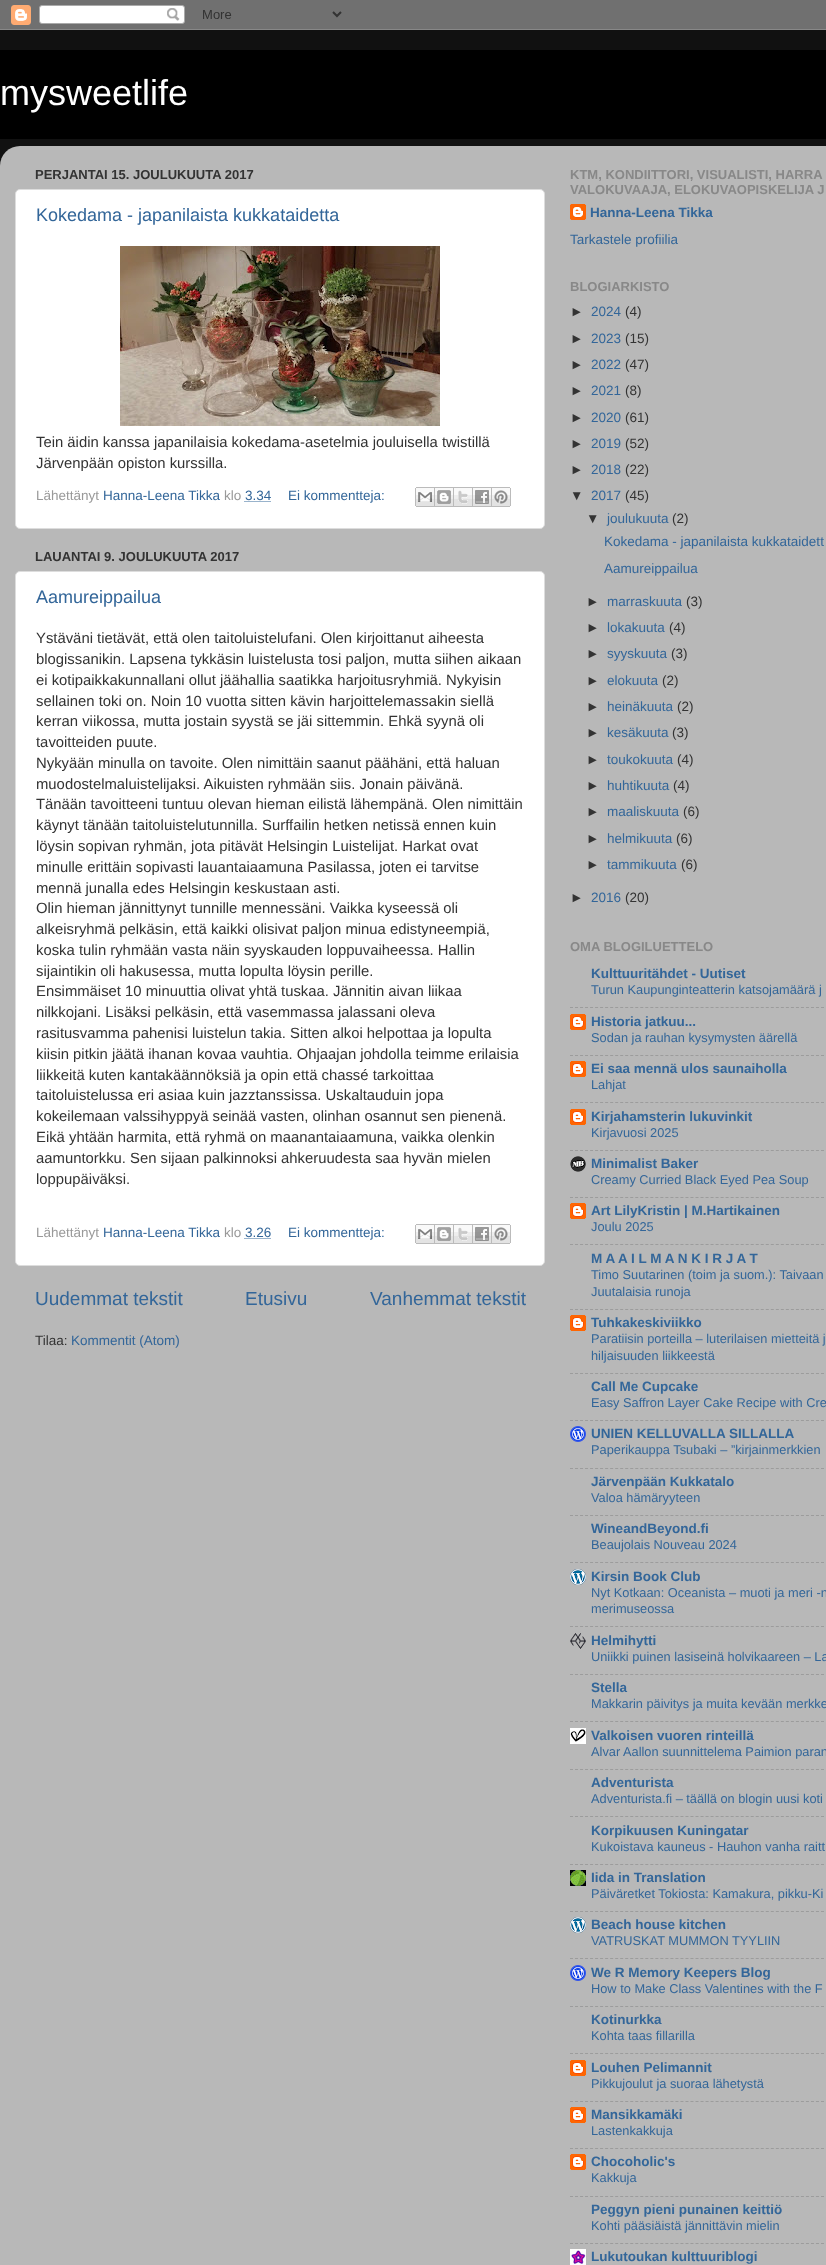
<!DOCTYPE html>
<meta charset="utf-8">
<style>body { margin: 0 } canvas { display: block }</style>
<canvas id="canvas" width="826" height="2265"></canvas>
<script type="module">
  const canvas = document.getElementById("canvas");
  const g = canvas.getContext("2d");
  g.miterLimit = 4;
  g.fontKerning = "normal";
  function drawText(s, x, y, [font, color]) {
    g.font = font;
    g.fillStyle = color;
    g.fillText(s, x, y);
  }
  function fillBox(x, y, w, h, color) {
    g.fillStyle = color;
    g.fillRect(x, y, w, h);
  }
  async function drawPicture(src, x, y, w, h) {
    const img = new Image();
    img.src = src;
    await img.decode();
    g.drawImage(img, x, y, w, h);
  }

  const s1 = ["36px Liberation Sans", "#FFFFFF"];
  const s2 = ["bold 13px Liberation Sans", "#333333"];
  const s3 = ["18px Liberation Sans", "#336699"];
  const s4 = ["14.85px Liberation Sans", "#333333"];
  const s5 = ["13.5px Liberation Sans", "#999999"];
  const s6 = ["13.5px Liberation Sans", "#336699"];
  const s7 = ["19px Liberation Sans", "#336699"];
  const s8 = ["13.5px Liberation Sans", "#333333"];
  const s9 = ["bold 13px Liberation Sans", "#888888"];
  const s10 = ["bold 13.5px Liberation Sans", "#336699"];
  const s11 = ["12.8px Liberation Sans", "#336699"];

  fillBox(0, 0, 826, 2265, "#111111");
  await drawPicture("pic1.png", 0, 0, 826, 30);
  fillBox(0, 50, 826, 89, "#000000");
  drawText("mysweetlife", 0, 105, s1);
  await drawPicture("pic2.png", 0, 146, 826, 2119);
  drawText("PERJANTAI 15. JOULUKUUTA 2017", 35, 179, s2);
  g.fillStyle = "#FFFFFF";
  g.beginPath();
  g.roundRect(15.5, 189.5, 529, 339, 4.5);
  g.fill();
  g.strokeStyle = "#DDDDDD";
  g.stroke();
  drawText("Kokedama - japanilaista kukkataidetta", 36, 221, s3);
  await drawPicture("pic3.png", 120, 246, 320, 180);
  drawText("Tein äidin kanssa japanilaisia kokedama-asetelmia jouluisella twistillä", 36, 447, s4);
  drawText("Järvenpään opiston kurssilla.", 36, 468, s4);
  drawText("Lähettänyt", 36, 500, s5);
  drawText("Hanna-Leena Tikka", 103, 500, s6);
  drawText("klo", 224, 500, s5);
  drawText("3.34", 245, 500, s6);
  g.beginPath();
  g.moveTo(244.5, 501.5);
  g.lineTo(271, 501.5);
  g.strokeStyle = "#336699";
  g.setLineDash([1, 1]);
  g.stroke();
  drawText("Ei kommentteja:", 288, 500, s6);
  await drawPicture("pic4.png", 415, 487, 20, 20);
  await drawPicture("pic5.png", 435, 487, 19, 20);
  await drawPicture("pic6.png", 454, 487, 19, 20);
  await drawPicture("pic7.png", 473, 487, 19, 20);
  await drawPicture("pic8.png", 492, 487, 19, 20);
  drawText("LAUANTAI 9. JOULUKUUTA 2017", 35, 561, s2);
  g.fillStyle = "#FFFFFF";
  g.beginPath();
  g.roundRect(15.5, 571.5, 529, 694, 4.5);
  g.fill();
  g.strokeStyle = "#DDDDDD";
  g.setLineDash([]);
  g.stroke();
  drawText("Aamureippailua", 36, 603, s3);
  drawText("Ystäväni tietävät, että olen taitoluistelufani. Olen kirjoittanut aiheesta", 36, 643, s4);
  drawText("blogissanikin. Lapsena tykkäsin luistelusta tosi paljon, mutta siihen aikaan", 36, 664, s4);
  drawText("ei kotipaikkakunnallani ollut jäähallia saatikka harjoitusryhmiä. Nykyisin", 36, 685, s4);
  drawText("sellainen toki on. Noin 10 vuotta sitten kävin harjoittelemassakin siellä", 36, 706, s4);
  drawText("kerran viikossa, mutta jostain syystä se jäi sittemmin. Ehkä syynä oli", 36, 726, s4);
  drawText("tavoitteiden puute.", 36, 747, s4);
  drawText("Nykyään minulla on tavoite. Olen nimittäin saanut päähäni, että haluan", 36, 768, s4);
  drawText("muodostelmaluistelijaksi. Aikuisten ryhmään siis. Jonain päivänä.", 36, 789, s4);
  drawText("Tänään tavoitteeni tuntuu olevan hieman eilistä lähempänä. Olen nimittäin", 36, 809, s4);
  drawText("käynyt tänään taitoluistelutunnilla. Surffailin hetken netissä ennen kuin", 36, 830, s4);
  drawText("löysin sopivan ryhmän, jota pitävät Helsingin Luistelijat. Harkat ovat", 36, 851, s4);
  drawText("minulle erittäin sopivasti lauantaiaamuna Pasilassa, joten ei tarvitse", 36, 872, s4);
  drawText("mennä junalla edes Helsingin keskustaan asti.", 36, 893, s4);
  drawText("Olin hieman jännittynyt tunnille mennessäni. Vaikka kyseessä oli", 36, 913, s4);
  drawText("alkeisryhmä pelkäsin, että kaikki olisivat paljon minua edistyneempiä,", 36, 934, s4);
  drawText("koska tulin ryhmään vasta näin syyskauden loppuvaiheessa. Hallin", 36, 955, s4);
  drawText("sijaintikin oli hakusessa, mutta lopulta löysin perille.", 36, 976, s4);
  drawText("Ensimmäiset 10 minuuttia olivat yhtä tuskaa. Jännitin aivan liikaa", 36, 996, s4);
  drawText("nilkkojani. Lisäksi pelkäsin, että vasemmassa jalassani oleva", 36, 1017, s4);
  drawText("rasitusvamma pahenisi luistelun takia. Sitten alkoi helpottaa ja lopulta", 36, 1038, s4);
  drawText("kiisin pitkin jäätä ihanan kovaa vauhtia. Ohjaajan johdolla teimme erilaisia", 36, 1059, s4);
  drawText("liikkeitä kuten kantakäännöksiä ja opin että chassé tarkoittaa", 36, 1080, s4);
  drawText("taitoluistelussa eri asiaa kuin jazztanssissa. Uskaltauduin jopa", 36, 1100, s4);
  drawText("kokeilemaan valssihyppyä seinää vasten, olinhan osannut sen pienenä.", 36, 1121, s4);
  drawText("Eikä yhtään harmita, että ryhmä on maanantaiaamuna, vaikka olenkin", 36, 1142, s4);
  drawText("aamuntorkku. Sen sijaan palkinnoksi ahkeruudesta saa hyvän mielen", 36, 1163, s4);
  drawText("loppupäiväksi.", 36, 1184, s4);
  drawText("Lähettänyt", 36, 1237, s5);
  drawText("Hanna-Leena Tikka", 103, 1237, s6);
  drawText("klo", 224, 1237, s5);
  drawText("3.26", 245, 1237, s6);
  g.beginPath();
  g.moveTo(244.5, 1238.5);
  g.lineTo(271, 1238.5);
  g.strokeStyle = "#336699";
  g.setLineDash([1, 1]);
  g.stroke();
  drawText("Ei kommentteja:", 288, 1237, s6);
  await drawPicture("pic4.png", 415, 1224, 20, 20);
  await drawPicture("pic5.png", 435, 1224, 19, 20);
  await drawPicture("pic6.png", 454, 1224, 19, 20);
  await drawPicture("pic7.png", 473, 1224, 19, 20);
  await drawPicture("pic8.png", 492, 1224, 19, 20);
  drawText("Uudemmat tekstit", 35, 1305, s7);
  drawText("Etusivu", 245, 1305, s7);
  drawText("Vanhemmat tekstit", 370, 1305, s7);
  drawText("Tilaa:", 35, 1345, s8);
  drawText("Kommentit (Atom)", 71, 1345, s6);
  drawText("KTM, KONDIITTORI, VISUALISTI, HARRA", 570, 179, s9);
  drawText("VALOKUVAAJA, ELOKUVAOPISKELIJA J", 570, 194, s9);
  await drawPicture("pic9.png", 570, 204, 16, 16);
  drawText("Hanna-Leena Tikka", 590, 217, s10);
  drawText("Tarkastele profiilia", 570, 244, s6);
  drawText("BLOGIARKISTO", 570, 291, s9);
  drawText("►", 570, 316, s8);
  drawText("2024", 591, 316, s6);
  drawText("(4)", 625, 316, s8);
  drawText("►", 570, 343, s8);
  drawText("2023", 591, 343, s6);
  drawText("(15)", 625, 343, s8);
  drawText("►", 570, 369, s8);
  drawText("2022", 591, 369, s6);
  drawText("(47)", 625, 369, s8);
  drawText("►", 570, 395, s8);
  drawText("2021", 591, 395, s6);
  drawText("(8)", 625, 395, s8);
  drawText("►", 570, 422, s8);
  drawText("2020", 591, 422, s6);
  drawText("(61)", 625, 422, s8);
  drawText("►", 570, 448, s8);
  drawText("2019", 591, 448, s6);
  drawText("(52)", 625, 448, s8);
  drawText("►", 570, 474, s8);
  drawText("2018", 591, 474, s6);
  drawText("(22)", 625, 474, s8);
  drawText("▼", 570, 500, s8);
  drawText("2017", 591, 500, s6);
  drawText("(45)", 625, 500, s8);
  drawText("▼", 586, 523, s8);
  drawText("joulukuuta", 607, 523, s6);
  drawText("(2)", 672, 523, s8);
  drawText("Kokedama - japanilaista kukkataidett", 604, 546, s6);
  drawText("Aamureippailua", 604, 573, s6);
  drawText("►", 586, 606, s8);
  drawText("marraskuuta", 607, 606, s6);
  drawText("(3)", 686, 606, s8);
  drawText("►", 586, 632, s8);
  drawText("lokakuuta", 607, 632, s6);
  drawText("(4)", 669, 632, s8);
  drawText("►", 586, 658, s8);
  drawText("syyskuuta", 607, 658, s6);
  drawText("(3)", 671, 658, s8);
  drawText("►", 586, 685, s8);
  drawText("elokuuta", 607, 685, s6);
  drawText("(2)", 662, 685, s8);
  drawText("►", 586, 711, s8);
  drawText("heinäkuuta", 607, 711, s6);
  drawText("(2)", 677, 711, s8);
  drawText("►", 586, 737, s8);
  drawText("kesäkuuta", 607, 737, s6);
  drawText("(3)", 672, 737, s8);
  drawText("►", 586, 764, s8);
  drawText("toukokuuta", 607, 764, s6);
  drawText("(4)", 677, 764, s8);
  drawText("►", 586, 790, s8);
  drawText("huhtikuuta", 607, 790, s6);
  drawText("(4)", 673, 790, s8);
  drawText("►", 586, 816, s8);
  drawText("maaliskuuta", 607, 816, s6);
  drawText("(6)", 683, 816, s8);
  drawText("►", 586, 843, s8);
  drawText("helmikuuta", 607, 843, s6);
  drawText("(6)", 676, 843, s8);
  drawText("►", 586, 869, s8);
  drawText("tammikuuta", 607, 869, s6);
  drawText("(6)", 681, 869, s8);
  drawText("►", 570, 902, s8);
  drawText("2016", 591, 902, s6);
  drawText("(20)", 625, 902, s8);
  drawText("OMA BLOGILUETTELO", 570, 951, s9);
  drawText("Kulttuuritähdet - Uutiset", 591, 978, s10);
  drawText("Turun Kaupunginteatterin katsojamäärä j", 591, 994, s11);
  g.beginPath();
  g.moveTo(570, 1007.5);
  g.lineTo(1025, 1007.5);
  g.strokeStyle = "#9C9C9C";
  g.setLineDash([3, 2.02]);
  g.stroke();
  await drawPicture("pic10.png", 570, 1014, 16, 16);
  drawText("Historia jatkuu...", 591, 1026, s10);
  drawText("Sodan ja rauhan kysymysten äärellä", 591, 1042, s11);
  g.beginPath();
  g.moveTo(570, 1055.5);
  g.lineTo(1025, 1055.5);
  g.stroke();
  await drawPicture("pic10.png", 570, 1061, 16, 16);
  drawText("Ei saa mennä ulos saunaiholla", 591, 1073, s10);
  drawText("Lahjat", 591, 1089, s11);
  g.beginPath();
  g.moveTo(570, 1102.5);
  g.lineTo(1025, 1102.5);
  g.stroke();
  await drawPicture("pic10.png", 570, 1109, 16, 16);
  drawText("Kirjahamsterin lukuvinkit", 591, 1121, s10);
  drawText("Kirjavuosi 2025", 591, 1137, s11);
  g.beginPath();
  g.moveTo(570, 1150.5);
  g.lineTo(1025, 1150.5);
  g.stroke();
  await drawPicture("pic11.png", 570, 1156, 16, 16);
  drawText("Minimalist Baker", 591, 1168, s10);
  drawText("Creamy Curried Black Eyed Pea Soup", 591, 1184, s11);
  g.beginPath();
  g.moveTo(570, 1197.5);
  g.lineTo(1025, 1197.5);
  g.stroke();
  await drawPicture("pic10.png", 570, 1203, 16, 16);
  drawText("Art LilyKristin | M.Hartikainen", 591, 1215, s10);
  drawText("Joulu 2025", 591, 1231, s11);
  g.beginPath();
  g.moveTo(570, 1244.5);
  g.lineTo(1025, 1244.5);
  g.stroke();
  drawText("M A A I L M A N K I R J A T", 591, 1263, s10);
  drawText("Timo Suutarinen (toim ja suom.): Taivaan", 591, 1279, s11);
  drawText("Juutalaisia runoja", 591, 1296, s11);
  g.beginPath();
  g.moveTo(570, 1309.5);
  g.lineTo(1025, 1309.5);
  g.stroke();
  await drawPicture("pic10.png", 570, 1315, 16, 16);
  drawText("Tuhkakeskiviikko", 591, 1327, s10);
  drawText("Paratiisin porteilla – luterilaisen mietteitä j", 591, 1343, s11);
  drawText("hiljaisuuden liikkeestä", 591, 1360, s11);
  g.beginPath();
  g.moveTo(570, 1373.5);
  g.lineTo(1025, 1373.5);
  g.stroke();
  drawText("Call Me Cupcake", 591, 1391, s10);
  drawText("Easy Saffron Layer Cake Recipe with Cre", 591, 1407, s11);
  g.beginPath();
  g.moveTo(570, 1420.5);
  g.lineTo(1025, 1420.5);
  g.stroke();
  await drawPicture("pic12.png", 570, 1426, 16, 16);
  drawText("UNIEN KELLUVALLA SILLALLA", 591, 1438, s10);
  drawText("Paperikauppa Tsubaki – ”kirjainmerkkien", 591, 1454, s11);
  g.beginPath();
  g.moveTo(570, 1468.5);
  g.lineTo(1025, 1468.5);
  g.stroke();
  drawText("Järvenpään Kukkatalo", 591, 1486, s10);
  drawText("Valoa hämäryyteen", 591, 1502, s11);
  g.beginPath();
  g.moveTo(570, 1515.5);
  g.lineTo(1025, 1515.5);
  g.stroke();
  drawText("WineandBeyond.fi", 591, 1533, s10);
  drawText("Beaujolais Nouveau 2024", 591, 1549, s11);
  g.beginPath();
  g.moveTo(570, 1562.5);
  g.lineTo(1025, 1562.5);
  g.stroke();
  await drawPicture("pic13.png", 570, 1569, 16, 16);
  drawText("Kirsin Book Club", 591, 1581, s10);
  drawText("Nyt Kotkaan: Oceanista – muoti ja meri -n", 591, 1597, s11);
  drawText("merimuseossa", 591, 1613, s11);
  g.beginPath();
  g.moveTo(570, 1626.5);
  g.lineTo(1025, 1626.5);
  g.stroke();
  await drawPicture("pic14.png", 570, 1633, 16, 16);
  drawText("Helmihytti", 591, 1645, s10);
  drawText("Uniikki puinen lasiseinä holvikaareen – La", 591, 1661, s11);
  g.beginPath();
  g.moveTo(570, 1674.5);
  g.lineTo(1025, 1674.5);
  g.stroke();
  drawText("Stella", 591, 1692, s10);
  drawText("Makkarin päivitys ja muita kevään merkke", 591, 1708, s11);
  g.beginPath();
  g.moveTo(570, 1721.5);
  g.lineTo(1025, 1721.5);
  g.stroke();
  await drawPicture("pic15.png", 570, 1728, 16, 16);
  drawText("Valkoisen vuoren rinteillä", 591, 1740, s10);
  drawText("Alvar Aallon suunnittelema Paimion paran", 591, 1756, s11);
  g.beginPath();
  g.moveTo(570, 1769.5);
  g.lineTo(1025, 1769.5);
  g.stroke();
  drawText("Adventurista", 591, 1787, s10);
  drawText("Adventurista.fi – täällä on blogin uusi koti", 591, 1803, s11);
  g.beginPath();
  g.moveTo(570, 1816.5);
  g.lineTo(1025, 1816.5);
  g.stroke();
  drawText("Korpikuusen Kuningatar", 591, 1835, s10);
  drawText("Kukoistava kauneus - Hauhon vanha raitt", 591, 1851, s11);
  g.beginPath();
  g.moveTo(570, 1864.5);
  g.lineTo(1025, 1864.5);
  g.stroke();
  await drawPicture("pic16.png", 570, 1870, 16, 16);
  drawText("Iida in Translation", 591, 1882, s10);
  drawText("Päiväretket Tokiosta: Kamakura, pikku-Ki", 591, 1898, s11);
  g.beginPath();
  g.moveTo(570, 1911.5);
  g.lineTo(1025, 1911.5);
  g.stroke();
  await drawPicture("pic13.png", 570, 1917, 16, 16);
  drawText("Beach house kitchen", 591, 1929, s10);
  drawText("VATRUSKAT MUMMON TYYLIIN", 591, 1945, s11);
  g.beginPath();
  g.moveTo(570, 1958.5);
  g.lineTo(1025, 1958.5);
  g.stroke();
  await drawPicture("pic12.png", 570, 1965, 16, 16);
  drawText("We R Memory Keepers Blog", 591, 1977, s10);
  drawText("How to Make Class Valentines with the F", 591, 1993, s11);
  g.beginPath();
  g.moveTo(570, 2006.5);
  g.lineTo(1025, 2006.5);
  g.stroke();
  drawText("Kotinurkka", 591, 2024, s10);
  drawText("Kohta taas fillarilla", 591, 2040, s11);
  g.beginPath();
  g.moveTo(570, 2053.5);
  g.lineTo(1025, 2053.5);
  g.stroke();
  await drawPicture("pic10.png", 570, 2060, 16, 16);
  drawText("Louhen Pelimannit", 591, 2072, s10);
  drawText("Pikkujoulut ja suoraa lähetystä", 591, 2088, s11);
  g.beginPath();
  g.moveTo(570, 2101.5);
  g.lineTo(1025, 2101.5);
  g.stroke();
  await drawPicture("pic10.png", 570, 2107, 16, 16);
  drawText("Mansikkamäki", 591, 2119, s10);
  drawText("Lastenkakkuja", 591, 2135, s11);
  g.beginPath();
  g.moveTo(570, 2148.5);
  g.lineTo(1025, 2148.5);
  g.stroke();
  await drawPicture("pic10.png", 570, 2154, 16, 16);
  drawText("Chocoholic's", 591, 2166, s10);
  drawText("Kakkuja", 591, 2182, s11);
  g.beginPath();
  g.moveTo(570, 2196.5);
  g.lineTo(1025, 2196.5);
  g.stroke();
  drawText("Peggyn pieni punainen keittiö", 591, 2214, s10);
  drawText("Kohti pääsiäistä jännittävin mielin", 591, 2230, s11);
  g.beginPath();
  g.moveTo(570, 2243.5);
  g.lineTo(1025, 2243.5);
  g.stroke();
  await drawPicture("pic17.png", 570, 2249, 16, 16);
  drawText("Lukutoukan kulttuuriblogi", 591, 2261, s10);
</script>
